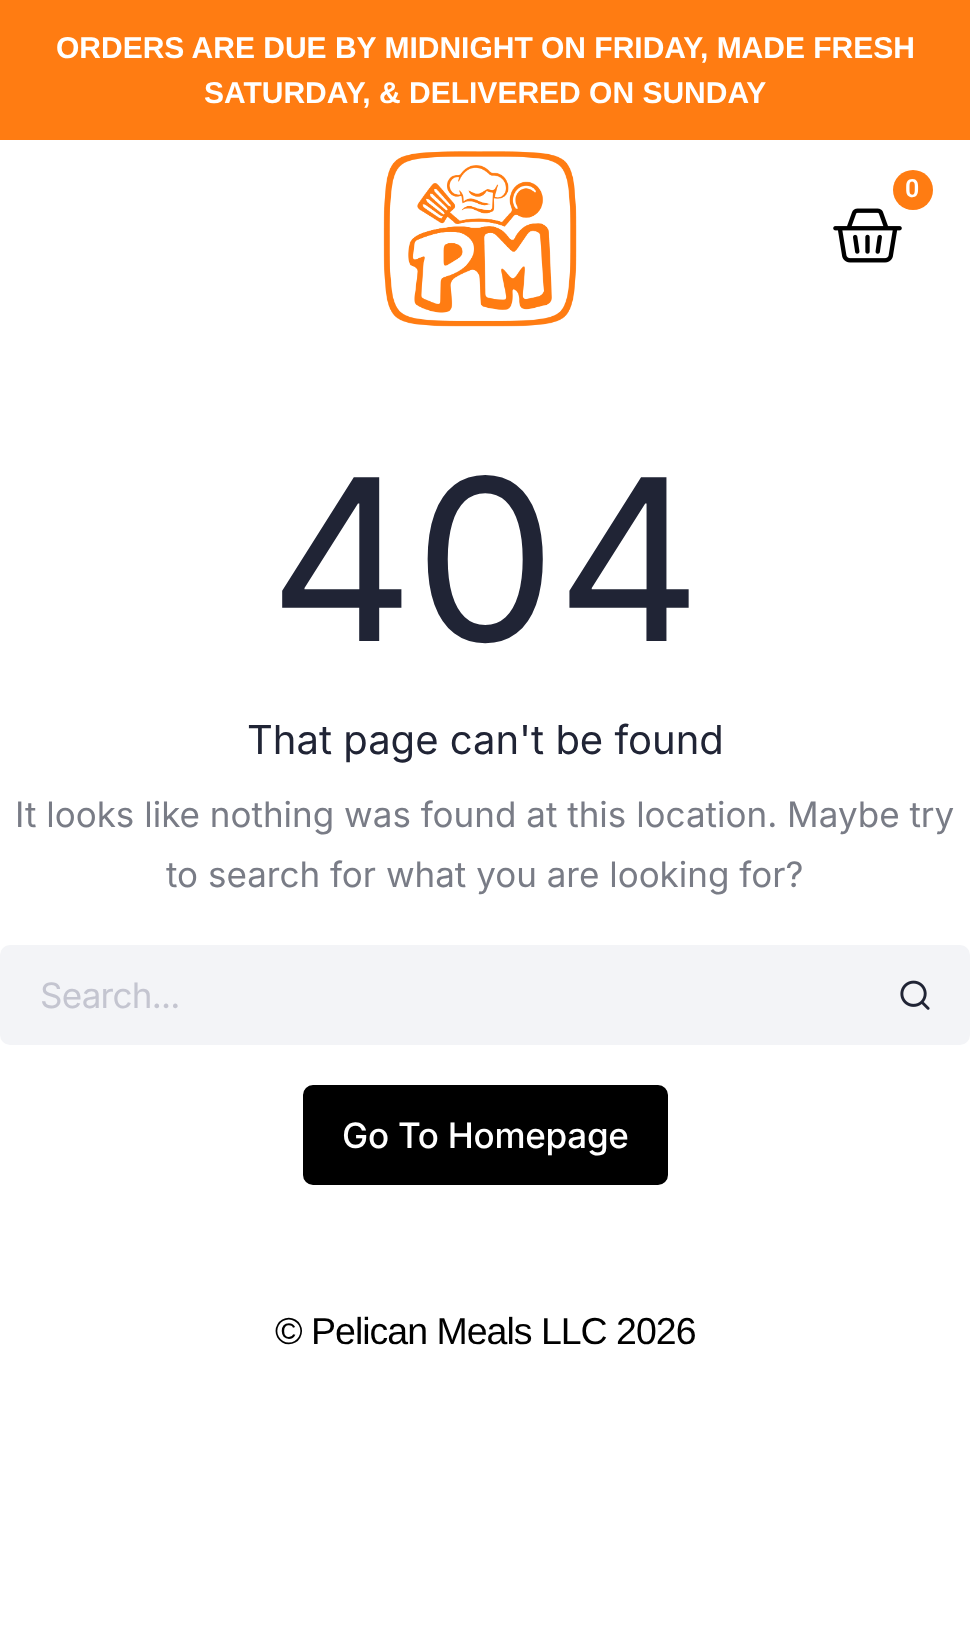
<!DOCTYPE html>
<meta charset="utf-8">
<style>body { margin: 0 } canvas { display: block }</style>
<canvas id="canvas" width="970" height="1650"></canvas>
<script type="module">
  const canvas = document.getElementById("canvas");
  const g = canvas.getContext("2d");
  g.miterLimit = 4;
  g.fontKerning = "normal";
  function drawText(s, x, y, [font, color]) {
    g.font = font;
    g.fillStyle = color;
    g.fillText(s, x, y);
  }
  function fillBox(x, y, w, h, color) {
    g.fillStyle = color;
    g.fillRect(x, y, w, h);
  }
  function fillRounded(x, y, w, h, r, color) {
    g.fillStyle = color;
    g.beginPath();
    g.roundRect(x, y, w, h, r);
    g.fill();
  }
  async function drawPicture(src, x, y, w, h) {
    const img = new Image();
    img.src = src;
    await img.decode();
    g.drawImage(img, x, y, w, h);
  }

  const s1 = ["bold 30px Liberation Sans", "#FFFFFF"];
  const s2 = ["600 25px Roboto", "#FFFFFF"];
  const s3 = ["225px Inter", "#202435"];
  const s4 = ["40px Inter", "#202435"];
  const s5 = ["35px Inter", "#797C86"];
  const s6 = ["35px Inter", "#C4C5D0"];
  const s7 = ["500 35px Inter", "#FFFFFF"];
  const s8 = ["37.5px Liberation Sans", "#000000"];

  fillBox(0, 0, 970, 1650, "#FFFFFF");
  fillBox(0, 0, 970, 140, "#FF7C12");
  drawText("ORDERS ARE DUE BY MIDNIGHT ON FRIDAY, MADE FRESH", 56, 58, s1);
  drawText("SATURDAY, & DELIVERED ON SUNDAY", 204, 103, s1);
  await drawPicture("pic1.png", 383, 151, 194, 176);
  await drawPicture("pic2.png", 833, 208, 69, 55);
  g.fillStyle = "#FF7C12";
  g.beginPath();
  g.arc(913, 190, 20, 0, Math.PI * 2);
  g.fill();
  g.letterSpacing = "-0.25px";
  drawText("0", 905, 197, s2);
  g.letterSpacing = "0px";
  drawText("404", 269, 641, s3);
  drawText("That page can't be found", 247, 754, s4);
  drawText("It looks like nothing was found at this location. Maybe try", 15, 827, s5);
  drawText("to search for what you are looking for?", 166, 887, s5);
  fillRounded(0, 945, 970, 100, 10, "#F3F4F7");
  g.letterSpacing = "-0.75px";
  drawText("Search...", 40, 1008, s6);
  await drawPicture("pic3.png", 900, 980, 30, 30);
  g.fillStyle = "#000000";
  g.beginPath();
  g.roundRect(304.5, 1086.5, 362, 97, 8.5);
  g.fill();
  g.strokeStyle = "#000000";
  g.lineWidth = 3;
  g.stroke();
  g.letterSpacing = "-0.25px";
  drawText("Go To Homepage", 342, 1148, s7);
  g.letterSpacing = "-1px";
  drawText("© Pelican Meals LLC 2026", 275, 1344, s8);
</script>
